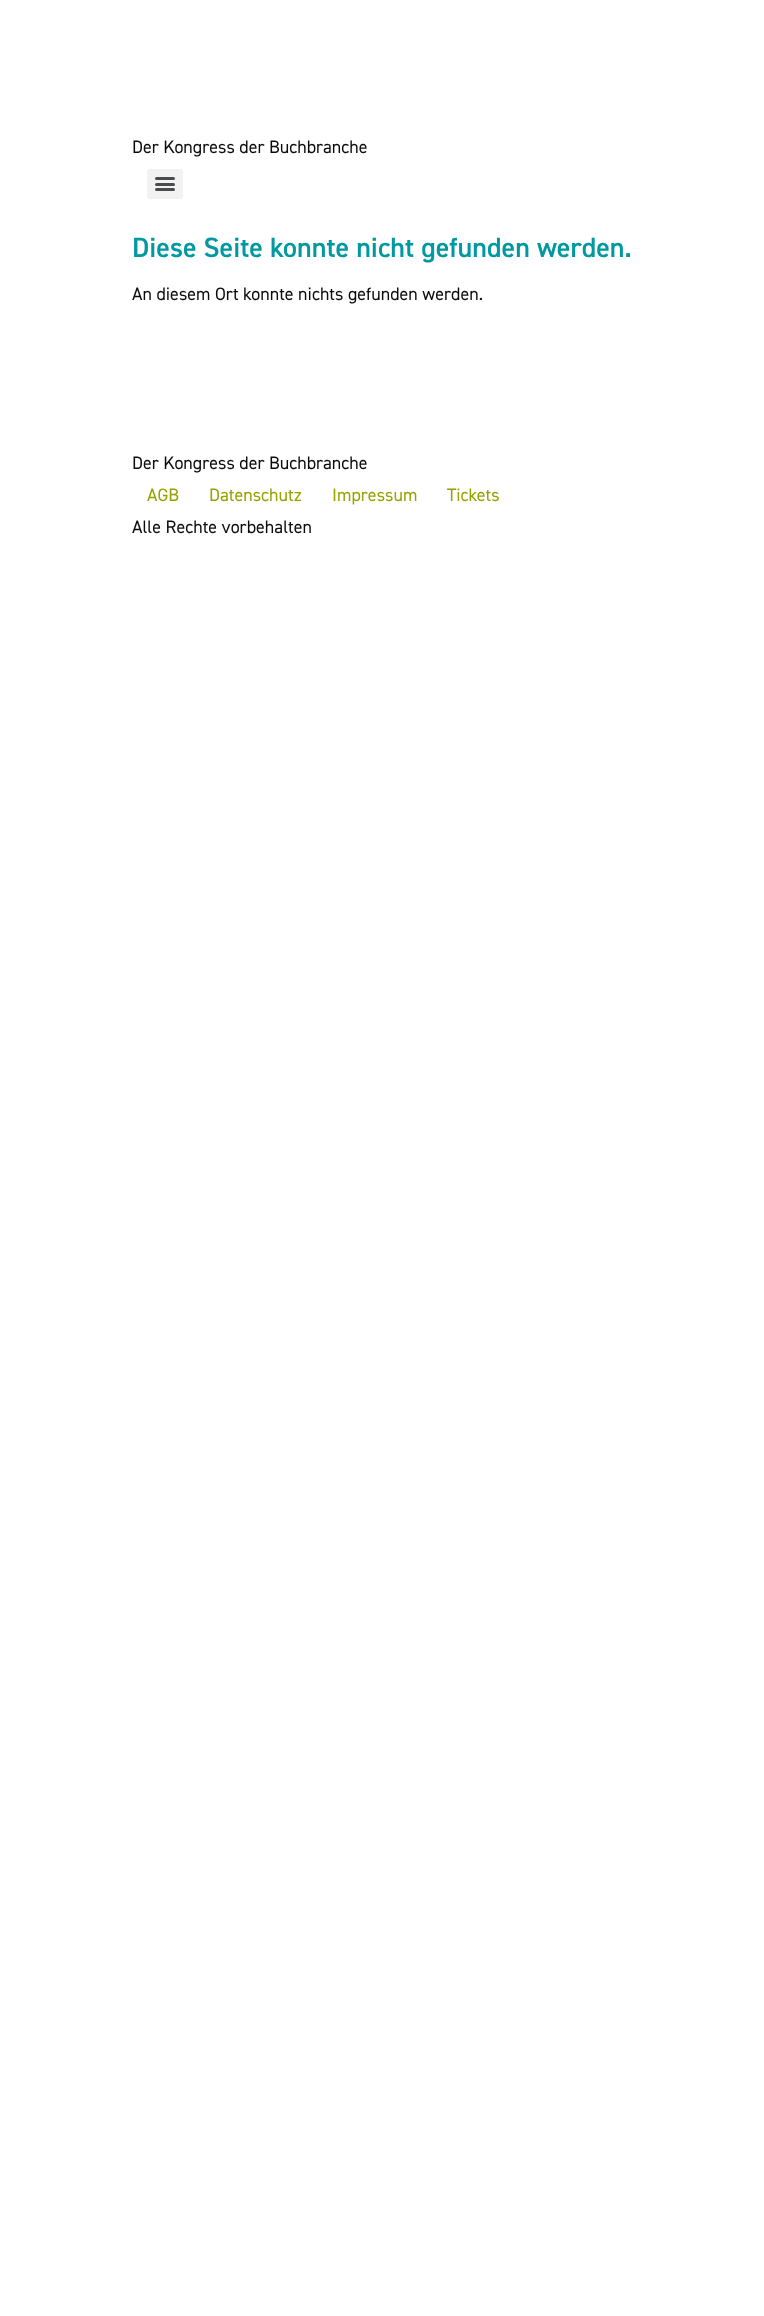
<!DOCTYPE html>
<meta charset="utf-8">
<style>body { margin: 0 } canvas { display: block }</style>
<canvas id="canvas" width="764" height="2316"></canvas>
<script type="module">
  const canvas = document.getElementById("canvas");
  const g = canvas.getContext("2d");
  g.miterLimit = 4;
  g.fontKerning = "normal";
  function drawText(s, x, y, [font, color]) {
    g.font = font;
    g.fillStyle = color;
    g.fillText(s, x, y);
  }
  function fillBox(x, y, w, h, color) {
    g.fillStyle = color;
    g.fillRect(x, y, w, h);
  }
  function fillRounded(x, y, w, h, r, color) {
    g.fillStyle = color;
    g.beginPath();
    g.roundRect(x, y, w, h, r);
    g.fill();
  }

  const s1 = ["18px 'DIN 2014'", "#0C0C0C"];
  const s2 = ["600 28px 'DIN 2014'", "#0098A1"];
  const s3 = ["18px 'DIN 2014'", "#98A100"];

  fillBox(0, 0, 764, 2316, "#FFFFFF");
  drawText("Der Kongress der Buchbranche", 132, 153, s1);
  fillRounded(147, 169, 36, 30, 3, "#F2F2F2");
  fillRounded(155, 183, 20, 3, 1.5, "#494C4F");
  fillRounded(155, 177, 20, 3, 1.5, "#494C4F");
  fillRounded(155, 188, 20, 3, 1.5, "#494C4F");
  drawText("Diese Seite konnte nicht gefunden werden.", 132, 257, s2);
  drawText("An diesem Ort konnte nichts gefunden werden.", 132, 300, s1);
  drawText("Der Kongress der Buchbranche", 132, 469, s1);
  drawText("AGB", 147, 501, s3);
  drawText("Datenschutz", 209, 501, s3);
  drawText("Impressum", 332, 501, s3);
  drawText("Tickets", 447, 501, s3);
  drawText("Alle Rechte vorbehalten", 132, 533, s1);
</script>
